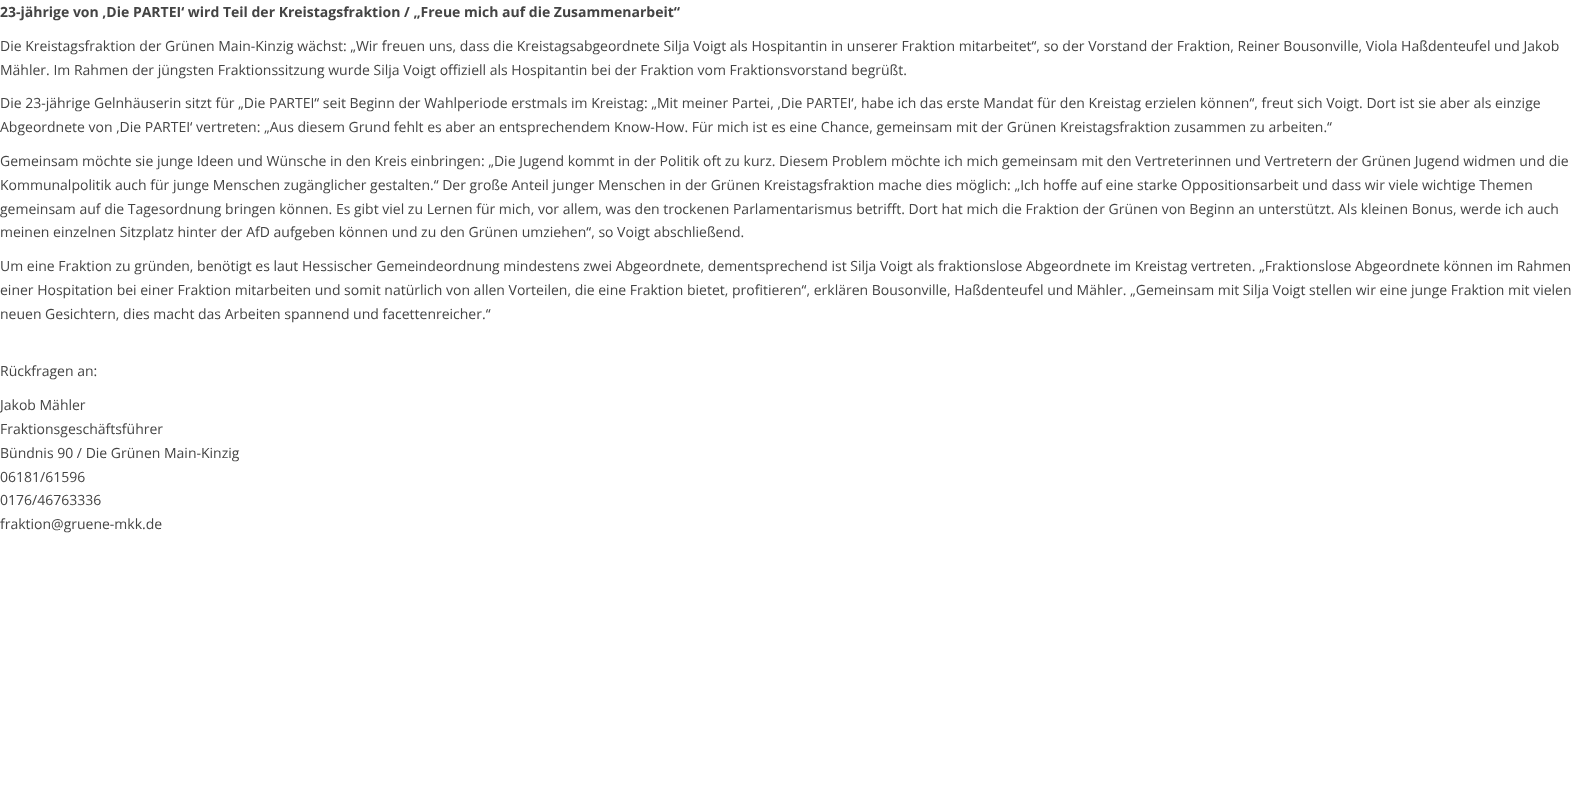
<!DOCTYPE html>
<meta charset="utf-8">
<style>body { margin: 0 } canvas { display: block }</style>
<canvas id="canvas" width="1582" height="802"></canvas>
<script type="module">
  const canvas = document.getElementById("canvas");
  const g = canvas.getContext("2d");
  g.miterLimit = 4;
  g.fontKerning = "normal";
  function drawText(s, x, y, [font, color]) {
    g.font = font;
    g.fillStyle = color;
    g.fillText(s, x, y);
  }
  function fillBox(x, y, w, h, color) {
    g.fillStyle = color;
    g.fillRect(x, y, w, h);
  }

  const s1 = ["bold 14px Open Sans", "#444444"];
  const s2 = ["14px Open Sans", "#444444"];

  fillBox(0, 0, 1582, 802, "#FFFFFF");
  drawText("23-jährige von ‚Die PARTEI‘ wird Teil der Kreistagsfraktion / „Freue mich auf die Zusammenarbeit“", 0, 17, s1);
  drawText("Die Kreistagsfraktion der Grünen Main-Kinzig wächst: „Wir freuen uns, dass die Kreistagsabgeordnete Silja Voigt als Hospitantin in unserer Fraktion mitarbeitet“, so der Vorstand der Fraktion, Reiner Bousonville, Viola Haßdenteufel und Jakob", 0, 51, s2);
  drawText("Mähler. Im Rahmen der jüngsten Fraktionssitzung wurde Silja Voigt offiziell als Hospitantin bei der Fraktion vom Fraktionsvorstand begrüßt.", 0, 75, s2);
  drawText("Die 23-jährige Gelnhäuserin sitzt für „Die PARTEI“ seit Beginn der Wahlperiode erstmals im Kreistag: „Mit meiner Partei, ‚Die PARTEI‘, habe ich das erste Mandat für den Kreistag erzielen können“, freut sich Voigt. Dort ist sie aber als einzige", 0, 108, s2);
  drawText("Abgeordnete von ‚Die PARTEI‘ vertreten: „Aus diesem Grund fehlt es aber an entsprechendem Know-How. Für mich ist es eine Chance, gemeinsam mit der Grünen Kreistagsfraktion zusammen zu arbeiten.“", 0, 132, s2);
  drawText("Gemeinsam möchte sie junge Ideen und Wünsche in den Kreis einbringen: „Die Jugend kommt in der Politik oft zu kurz. Diesem Problem möchte ich mich gemeinsam mit den Vertreterinnen und Vertretern der Grünen Jugend widmen und die", 0, 166, s2);
  drawText("Kommunalpolitik auch für junge Menschen zugänglicher gestalten.“ Der große Anteil junger Menschen in der Grünen Kreistagsfraktion mache dies möglich: „Ich hoffe auf eine starke Oppositionsarbeit und dass wir viele wichtige Themen", 0, 190, s2);
  drawText("gemeinsam auf die Tagesordnung bringen können. Es gibt viel zu Lernen für mich, vor allem, was den trockenen Parlamentarismus betrifft. Dort hat mich die Fraktion der Grünen von Beginn an unterstützt. Als kleinen Bonus, werde ich auch", 0, 214, s2);
  drawText("meinen einzelnen Sitzplatz hinter der AfD aufgeben können und zu den Grünen umziehen“, so Voigt abschließend.", 0, 237, s2);
  drawText("Um eine Fraktion zu gründen, benötigt es laut Hessischer Gemeindeordnung mindestens zwei Abgeordnete, dementsprechend ist Silja Voigt als fraktionslose Abgeordnete im Kreistag vertreten. „Fraktionslose Abgeordnete können im Rahmen", 0, 271, s2);
  drawText("einer Hospitation bei einer Fraktion mitarbeiten und somit natürlich von allen Vorteilen, die eine Fraktion bietet, profitieren“, erklären Bousonville, Haßdenteufel und Mähler. „Gemeinsam mit Silja Voigt stellen wir eine junge Fraktion mit vielen", 0, 295, s2);
  drawText("neuen Gesichtern, dies macht das Arbeiten spannend und facettenreicher.“", 0, 319, s2);
  drawText("Rückfragen an:", 0, 376, s2);
  drawText("Jakob Mähler", 0, 410, s2);
  drawText("Fraktionsgeschäftsführer", 0, 434, s2);
  drawText("Bündnis 90 / Die Grünen Main-Kinzig", 0, 458, s2);
  drawText("06181/61596", 0, 482, s2);
  drawText("0176/46763336", 0, 505, s2);
  drawText("fraktion@gruene-mkk.de", 0, 529, s2);
</script>
